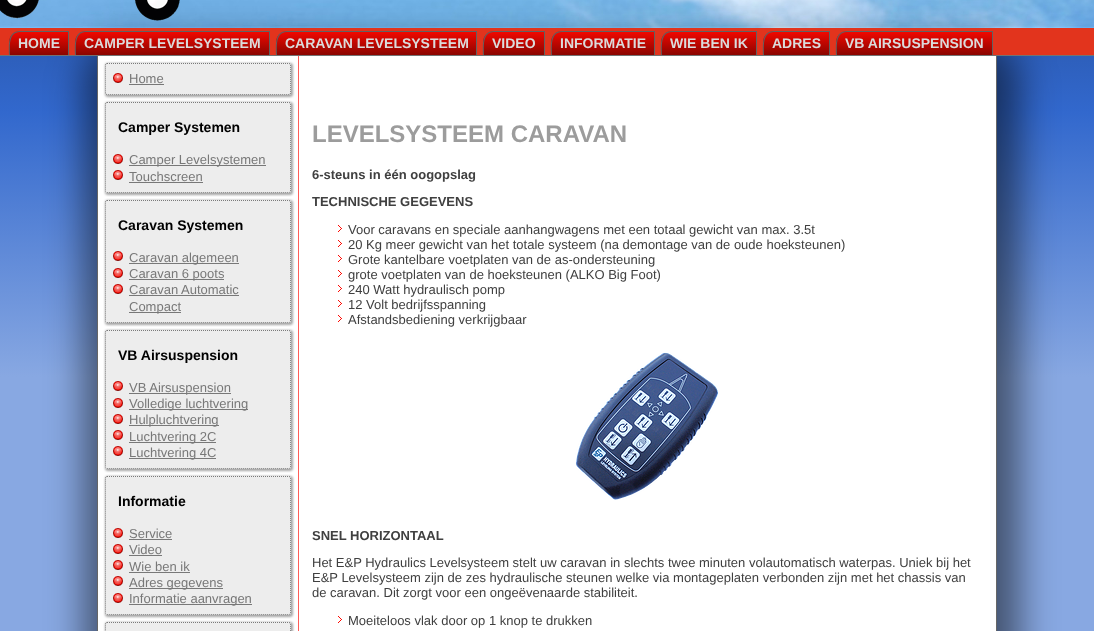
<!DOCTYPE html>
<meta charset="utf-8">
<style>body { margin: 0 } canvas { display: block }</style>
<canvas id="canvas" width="1094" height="631"></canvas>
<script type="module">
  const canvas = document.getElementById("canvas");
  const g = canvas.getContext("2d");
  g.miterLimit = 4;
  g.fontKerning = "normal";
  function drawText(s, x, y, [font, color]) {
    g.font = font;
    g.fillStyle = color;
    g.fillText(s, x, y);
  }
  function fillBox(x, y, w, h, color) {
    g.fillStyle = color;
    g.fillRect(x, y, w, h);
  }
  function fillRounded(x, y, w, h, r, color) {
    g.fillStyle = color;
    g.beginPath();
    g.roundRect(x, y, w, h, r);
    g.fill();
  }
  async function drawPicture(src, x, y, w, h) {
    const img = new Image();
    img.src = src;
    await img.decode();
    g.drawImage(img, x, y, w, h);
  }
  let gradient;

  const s1 = ["bold 14px Liberation Sans", "#DBDBDB"];
  const s2 = ["13px Liberation Sans", "#787878"];
  const s3 = ["bold 14px Liberation Sans", "#000000"];
  const s4 = ["bold 24px Liberation Sans", "#9C9C9C"];
  const s5 = ["bold 13px Liberation Sans", "#404040"];
  const s6 = ["13px Liberation Sans", "#404040"];

  fillBox(0, 0, 1094, 631, "#FFFFFF");
  gradient = g.createLinearGradient(547, -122, 547, 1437);
  gradient.addColorStop(0, "#204383");
  gradient.addColorStop(0.15, "#3268CD");
  gradient.addColorStop(0.32, "#88A8E2");
  g.fillStyle = gradient;
  g.fillRect(0, 56, 1094, 575);
  await drawPicture("pic1.png", 0, 0, 1094, 28);
  await drawPicture("pic2.png", 0, 0, 180, 21);
  g.fillStyle = "rgba(0, 0, 0, 0.5)";
  g.filter = "blur(18px)";
  g.beginPath();
  g.roundRect(84, 43, 936, 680, 38);
  g.fill();
  g.filter = "none";
  fillBox(0, 28, 1094, 27, "#E2341D");
  fillBox(0, 55, 1094, 1, "#737373");
  gradient = g.createLinearGradient(39, 31, 39, 55);
  gradient.addColorStop(0, "#F50800");
  gradient.addColorStop(1, "#8A0500");
  g.fillStyle = gradient;
  g.beginPath();
  g.roundRect(9, 31, 60, 24, [11, 0, 0, 0]);
  g.fill();
  g.fillStyle = "#616161";
  g.beginPath();
  g.moveTo(20, 31);
  g.lineTo(69, 31);
  g.lineTo(69, 55);
  g.lineTo(9, 55);
  g.bezierCurveTo(9, 46, 7, 31, 20, 31);
  g.closePath();
  g.moveTo(20, 32);
  g.lineTo(68, 32);
  g.lineTo(68, 55);
  g.lineTo(10, 55);
  g.bezierCurveTo(10, 47, 8, 32, 20, 32);
  g.closePath();
  g.fill("evenodd");
  drawText("HOME", 18, 48, s1);
  gradient = g.createLinearGradient(173, 31, 173, 55);
  gradient.addColorStop(0, "#F50800");
  gradient.addColorStop(1, "#8A0500");
  g.fillStyle = gradient;
  g.beginPath();
  g.roundRect(75, 31, 195, 24, [11, 0, 0, 0]);
  g.fill();
  g.fillStyle = "#616161";
  g.beginPath();
  g.moveTo(86, 31);
  g.lineTo(270, 31);
  g.lineTo(270, 55);
  g.lineTo(75, 55);
  g.bezierCurveTo(75, 46, 73, 31, 86, 31);
  g.closePath();
  g.moveTo(86, 32);
  g.lineTo(269, 32);
  g.lineTo(269, 55);
  g.lineTo(76, 55);
  g.bezierCurveTo(76, 47, 74, 32, 86, 32);
  g.closePath();
  g.fill("evenodd");
  drawText("CAMPER LEVELSYSTEEM", 84, 48, s1);
  gradient = g.createLinearGradient(377, 31, 377, 55);
  gradient.addColorStop(0, "#F50800");
  gradient.addColorStop(1, "#8A0500");
  g.fillStyle = gradient;
  g.beginPath();
  g.roundRect(276, 31, 201, 24, [11, 0, 0, 0]);
  g.fill();
  g.fillStyle = "#616161";
  g.beginPath();
  g.moveTo(287, 31);
  g.lineTo(477, 31);
  g.lineTo(477, 55);
  g.lineTo(276, 55);
  g.bezierCurveTo(276, 46, 274, 31, 287, 31);
  g.closePath();
  g.moveTo(287, 32);
  g.lineTo(476, 32);
  g.lineTo(476, 55);
  g.lineTo(277, 55);
  g.bezierCurveTo(277, 47, 275, 32, 287, 32);
  g.closePath();
  g.fill("evenodd");
  drawText("CARAVAN LEVELSYSTEEM", 285, 48, s1);
  gradient = g.createLinearGradient(514, 31, 514, 55);
  gradient.addColorStop(0, "#F50800");
  gradient.addColorStop(1, "#8A0500");
  g.fillStyle = gradient;
  g.beginPath();
  g.roundRect(483, 31, 62, 24, [11, 0, 0, 0]);
  g.fill();
  g.fillStyle = "#616161";
  g.beginPath();
  g.moveTo(494, 31);
  g.lineTo(545, 31);
  g.lineTo(545, 55);
  g.lineTo(483, 55);
  g.bezierCurveTo(483, 46, 481, 31, 494, 31);
  g.closePath();
  g.moveTo(494, 32);
  g.lineTo(544, 32);
  g.lineTo(544, 55);
  g.lineTo(484, 55);
  g.bezierCurveTo(484, 47, 482, 32, 494, 32);
  g.closePath();
  g.fill("evenodd");
  drawText("VIDEO", 492, 48, s1);
  gradient = g.createLinearGradient(603, 31, 603, 55);
  gradient.addColorStop(0, "#F50800");
  gradient.addColorStop(1, "#8A0500");
  g.fillStyle = gradient;
  g.beginPath();
  g.roundRect(551, 31, 104, 24, [11, 0, 0, 0]);
  g.fill();
  g.fillStyle = "#616161";
  g.beginPath();
  g.moveTo(562, 31);
  g.lineTo(655, 31);
  g.lineTo(655, 55);
  g.lineTo(551, 55);
  g.bezierCurveTo(551, 46, 549, 31, 562, 31);
  g.closePath();
  g.moveTo(562, 32);
  g.lineTo(654, 32);
  g.lineTo(654, 55);
  g.lineTo(552, 55);
  g.bezierCurveTo(552, 47, 550, 32, 562, 32);
  g.closePath();
  g.fill("evenodd");
  drawText("INFORMATIE", 560, 48, s1);
  gradient = g.createLinearGradient(709, 31, 709, 55);
  gradient.addColorStop(0, "#F50800");
  gradient.addColorStop(1, "#8A0500");
  g.fillStyle = gradient;
  g.beginPath();
  g.roundRect(661, 31, 96, 24, [11, 0, 0, 0]);
  g.fill();
  g.fillStyle = "#616161";
  g.beginPath();
  g.moveTo(672, 31);
  g.lineTo(757, 31);
  g.lineTo(757, 55);
  g.lineTo(661, 55);
  g.bezierCurveTo(661, 46, 659, 31, 672, 31);
  g.closePath();
  g.moveTo(672, 32);
  g.lineTo(756, 32);
  g.lineTo(756, 55);
  g.lineTo(662, 55);
  g.bezierCurveTo(662, 47, 660, 32, 672, 32);
  g.closePath();
  g.fill("evenodd");
  drawText("WIE BEN IK", 670, 48, s1);
  gradient = g.createLinearGradient(797, 31, 797, 55);
  gradient.addColorStop(0, "#F50800");
  gradient.addColorStop(1, "#8A0500");
  g.fillStyle = gradient;
  g.beginPath();
  g.roundRect(763, 31, 67, 24, [11, 0, 0, 0]);
  g.fill();
  g.fillStyle = "#616161";
  g.beginPath();
  g.moveTo(774, 31);
  g.lineTo(830, 31);
  g.lineTo(830, 55);
  g.lineTo(763, 55);
  g.bezierCurveTo(763, 46, 761, 31, 774, 31);
  g.closePath();
  g.moveTo(774, 32);
  g.lineTo(829, 32);
  g.lineTo(829, 55);
  g.lineTo(764, 55);
  g.bezierCurveTo(764, 47, 762, 32, 774, 32);
  g.closePath();
  g.fill("evenodd");
  drawText("ADRES", 772, 48, s1);
  gradient = g.createLinearGradient(915, 31, 915, 55);
  gradient.addColorStop(0, "#F50800");
  gradient.addColorStop(1, "#8A0500");
  g.fillStyle = gradient;
  g.beginPath();
  g.roundRect(836, 31, 157, 24, [11, 0, 0, 0]);
  g.fill();
  g.fillStyle = "#616161";
  g.beginPath();
  g.moveTo(847, 31);
  g.lineTo(993, 31);
  g.lineTo(993, 55);
  g.lineTo(836, 55);
  g.bezierCurveTo(836, 46, 834, 31, 847, 31);
  g.closePath();
  g.moveTo(847, 32);
  g.lineTo(992, 32);
  g.lineTo(992, 55);
  g.lineTo(837, 55);
  g.bezierCurveTo(837, 47, 835, 32, 847, 32);
  g.closePath();
  g.fill("evenodd");
  drawText("VB AIRSUSPENSION", 845, 48, s1);
  fillBox(98, 56, 898, 575, "#FFFFFF");
  g.fillStyle = "#666666";
  g.beginPath();
  g.moveTo(97, 56);
  g.lineTo(997, 56);
  g.lineTo(997, 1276);
  g.bezierCurveTo(997, 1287, 988, 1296, 977, 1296);
  g.lineTo(117, 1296);
  g.bezierCurveTo(106, 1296, 97, 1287, 97, 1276);
  g.closePath();
  g.moveTo(98, 56);
  g.lineTo(996, 56);
  g.lineTo(996, 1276);
  g.bezierCurveTo(996, 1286, 987, 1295, 977, 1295);
  g.lineTo(117, 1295);
  g.bezierCurveTo(107, 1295, 98, 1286, 98, 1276);
  g.closePath();
  g.fill("evenodd");
  fillBox(298, 56, 1, 575, "#FF5C57");
  g.fillStyle = "rgba(0, 0, 0, 0.35)";
  g.filter = "blur(1px)";
  g.beginPath();
  g.roundRect(105, 63, 188, 34, 3);
  g.fill();
  g.filter = "none";
  fillRounded(105, 63, 186, 32, 2, "#EDEDED");
  g.beginPath();
  g.moveTo(107, 63.5);
  g.lineTo(289, 63.5);
  g.bezierCurveTo(290, 63.5, 290.5, 64, 290.5, 65);
  g.lineTo(290.5, 93);
  g.bezierCurveTo(290.5, 94, 290, 94.5, 289, 94.5);
  g.lineTo(107, 94.5);
  g.bezierCurveTo(106, 94.5, 105.5, 94, 105.5, 93);
  g.lineTo(105.5, 65);
  g.bezierCurveTo(105.5, 64, 106, 63.5, 107, 63.5);
  g.closePath();
  g.strokeStyle = "#7A7A7A";
  g.setLineDash([1, 1]);
  g.stroke();
  await drawPicture("pic3.png", 113, 73, 10, 10);
  drawText("Home", 129, 83, s2);
  fillBox(129, 84, 35, 1, "#787878");
  g.fillStyle = "rgba(0, 0, 0, 0.35)";
  g.filter = "blur(1px)";
  g.beginPath();
  g.roundRect(105, 102, 188, 93, 3);
  g.fill();
  g.filter = "none";
  fillRounded(105, 102, 186, 91, 2, "#EDEDED");
  g.beginPath();
  g.moveTo(107, 102.5);
  g.lineTo(289, 102.5);
  g.bezierCurveTo(290, 102.5, 290.5, 103, 290.5, 104);
  g.lineTo(290.5, 191);
  g.bezierCurveTo(290.5, 192, 290, 192.5, 289, 192.5);
  g.lineTo(107, 192.5);
  g.bezierCurveTo(106, 192.5, 105.5, 192, 105.5, 191);
  g.lineTo(105.5, 104);
  g.bezierCurveTo(105.5, 103, 106, 102.5, 107, 102.5);
  g.closePath();
  g.stroke();
  drawText("Camper Systemen", 118, 132, s3);
  await drawPicture("pic3.png", 113, 154, 10, 10);
  fillBox(129, 165, 137, 1, "#787878");
  drawText("Camper Levelsystemen", 129, 164, s2);
  await drawPicture("pic3.png", 113, 170, 10, 10);
  drawText("Touchscreen", 129, 181, s2);
  fillBox(129, 182, 74, 1, "#787878");
  g.fillStyle = "rgba(0, 0, 0, 0.35)";
  g.filter = "blur(1px)";
  g.beginPath();
  g.roundRect(105, 200, 188, 125, 3);
  g.fill();
  g.filter = "none";
  fillRounded(105, 200, 186, 123, 2, "#EDEDED");
  g.beginPath();
  g.moveTo(107, 200.5);
  g.lineTo(289, 200.5);
  g.bezierCurveTo(290, 200.5, 290.5, 201, 290.5, 202);
  g.lineTo(290.5, 321);
  g.bezierCurveTo(290.5, 322, 290, 322.5, 289, 322.5);
  g.lineTo(107, 322.5);
  g.bezierCurveTo(106, 322.5, 105.5, 322, 105.5, 321);
  g.lineTo(105.5, 202);
  g.bezierCurveTo(105.5, 201, 106, 200.5, 107, 200.5);
  g.closePath();
  g.stroke();
  drawText("Caravan Systemen", 118, 230, s3);
  await drawPicture("pic3.png", 113, 251, 10, 10);
  fillBox(129, 263, 110, 1, "#787878");
  drawText("Caravan algemeen", 129, 262, s2);
  await drawPicture("pic3.png", 113, 268, 10, 10);
  fillBox(129, 279, 95, 1, "#787878");
  drawText("Caravan 6 poots", 129, 278, s2);
  await drawPicture("pic3.png", 113, 284, 10, 10);
  drawText("Caravan Automatic", 129, 294, s2);
  fillBox(129, 295, 110, 1, "#787878");
  fillBox(129, 312, 52, 1, "#787878");
  drawText("Compact", 129, 311, s2);
  g.fillStyle = "rgba(0, 0, 0, 0.35)";
  g.filter = "blur(1px)";
  g.beginPath();
  g.roundRect(105, 330, 188, 141, 3);
  g.fill();
  g.filter = "none";
  fillRounded(105, 330, 186, 139, 2, "#EDEDED");
  g.beginPath();
  g.moveTo(107, 330.5);
  g.lineTo(289, 330.5);
  g.bezierCurveTo(290, 330.5, 290.5, 331, 290.5, 332);
  g.lineTo(290.5, 467);
  g.bezierCurveTo(290.5, 468, 290, 468.5, 289, 468.5);
  g.lineTo(107, 468.5);
  g.bezierCurveTo(106, 468.5, 105.5, 468, 105.5, 467);
  g.lineTo(105.5, 332);
  g.bezierCurveTo(105.5, 331, 106, 330.5, 107, 330.5);
  g.closePath();
  g.stroke();
  drawText("VB Airsuspension", 118, 360, s3);
  await drawPicture("pic3.png", 113, 381, 10, 10);
  fillBox(129, 393, 102, 1, "#787878");
  drawText("VB Airsuspension", 129, 392, s2);
  await drawPicture("pic3.png", 113, 398, 10, 10);
  fillBox(129, 409, 119, 1, "#787878");
  drawText("Volledige luchtvering", 129, 408, s2);
  await drawPicture("pic3.png", 113, 414, 10, 10);
  fillBox(129, 425, 90, 1, "#787878");
  drawText("Hulpluchtvering", 129, 424, s2);
  await drawPicture("pic3.png", 113, 430, 10, 10);
  fillBox(129, 442, 87, 1, "#787878");
  drawText("Luchtvering 2C", 129, 441, s2);
  await drawPicture("pic3.png", 113, 446, 10, 10);
  fillBox(129, 458, 87, 1, "#787878");
  drawText("Luchtvering 4C", 129, 457, s2);
  g.fillStyle = "rgba(0, 0, 0, 0.35)";
  g.filter = "blur(1px)";
  g.beginPath();
  g.roundRect(105, 476, 188, 141, 3);
  g.fill();
  g.filter = "none";
  fillRounded(105, 476, 186, 139, 2, "#EDEDED");
  g.beginPath();
  g.moveTo(107, 476.5);
  g.lineTo(289, 476.5);
  g.bezierCurveTo(290, 476.5, 290.5, 477, 290.5, 478);
  g.lineTo(290.5, 613);
  g.bezierCurveTo(290.5, 614, 290, 614.5, 289, 614.5);
  g.lineTo(107, 614.5);
  g.bezierCurveTo(106, 614.5, 105.5, 614, 105.5, 613);
  g.lineTo(105.5, 478);
  g.bezierCurveTo(105.5, 477, 106, 476.5, 107, 476.5);
  g.closePath();
  g.stroke();
  drawText("Informatie", 118, 506, s3);
  await drawPicture("pic3.png", 113, 528, 10, 10);
  drawText("Service", 129, 538, s2);
  fillBox(129, 539, 43, 1, "#787878");
  await drawPicture("pic3.png", 113, 544, 10, 10);
  drawText("Video", 129, 554, s2);
  fillBox(129, 555, 33, 1, "#787878");
  await drawPicture("pic3.png", 113, 560, 10, 10);
  drawText("Wie ben ik", 129, 571, s2);
  fillBox(129, 572, 61, 1, "#787878");
  await drawPicture("pic3.png", 113, 576, 10, 10);
  fillBox(129, 588, 94, 1, "#787878");
  drawText("Adres gegevens", 129, 587, s2);
  await drawPicture("pic3.png", 113, 593, 10, 10);
  fillBox(129, 604, 123, 1, "#787878");
  drawText("Informatie aanvragen", 129, 603, s2);
  g.fillStyle = "rgba(0, 0, 0, 0.35)";
  g.filter = "blur(1px)";
  g.beginPath();
  g.roundRect(105, 622, 188, 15, 3);
  g.fill();
  g.filter = "none";
  fillRounded(105, 622, 186, 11, 2, "#EDEDED");
  g.beginPath();
  g.moveTo(107, 622.5);
  g.lineTo(289, 622.5);
  g.bezierCurveTo(290, 622.5, 290.5, 623, 290.5, 624);
  g.lineTo(290.5, 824);
  g.bezierCurveTo(290.5, 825, 290, 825.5, 289, 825.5);
  g.lineTo(107, 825.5);
  g.bezierCurveTo(106, 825.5, 105.5, 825, 105.5, 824);
  g.lineTo(105.5, 624);
  g.bezierCurveTo(105.5, 623, 106, 622.5, 107, 622.5);
  g.closePath();
  g.stroke();
  drawText("LEVELSYSTEEM CARAVAN", 312, 142, s4);
  drawText("6-steuns in één oogopslag", 312, 179, s5);
  drawText("TECHNISCHE GEGEVENS", 312, 206, s5);
  await drawPicture("pic4.png", 338, 225, 4, 7);
  drawText("Voor caravans en speciale aanhangwagens met een totaal gewicht van max. 3.5t", 348, 234, s6);
  await drawPicture("pic4.png", 338, 240, 4, 7);
  drawText("20 Kg meer gewicht van het totale systeem (na demontage van de oude hoeksteunen)", 348, 249, s6);
  await drawPicture("pic4.png", 338, 255, 4, 7);
  drawText("Grote kantelbare voetplaten van de as-ondersteuning", 348, 264, s6);
  await drawPicture("pic4.png", 338, 270, 4, 7);
  drawText("grote voetplaten van de hoeksteunen (ALKO Big Foot)", 348, 279, s6);
  await drawPicture("pic4.png", 338, 285, 4, 7);
  drawText("240 Watt hydraulisch pomp", 348, 294, s6);
  await drawPicture("pic4.png", 338, 300, 4, 7);
  drawText("12 Volt bedrijfsspanning", 348, 309, s6);
  await drawPicture("pic4.png", 338, 315, 4, 7);
  drawText("Afstandsbediening verkrijgbaar", 348, 324, s6);
  await drawPicture("pic5.png", 575, 352, 143, 148);
  drawText("SNEL HORIZONTAAL", 312, 540, s5);
  drawText("Het E&P Hydraulics Levelsysteem stelt uw caravan in slechts twee minuten volautomatisch waterpas. Uniek bij het", 312, 567, s6);
  drawText("E&P Levelsysteem zijn de zes hydraulische steunen welke via montageplaten verbonden zijn met het chassis van", 312, 582, s6);
  drawText("de caravan. Dit zorgt voor een ongeëvenaarde stabiliteit.", 312, 597, s6);
  await drawPicture("pic4.png", 338, 616, 4, 7);
  drawText("Moeiteloos vlak door op 1 knop te drukken", 348, 625, s6);
</script>
